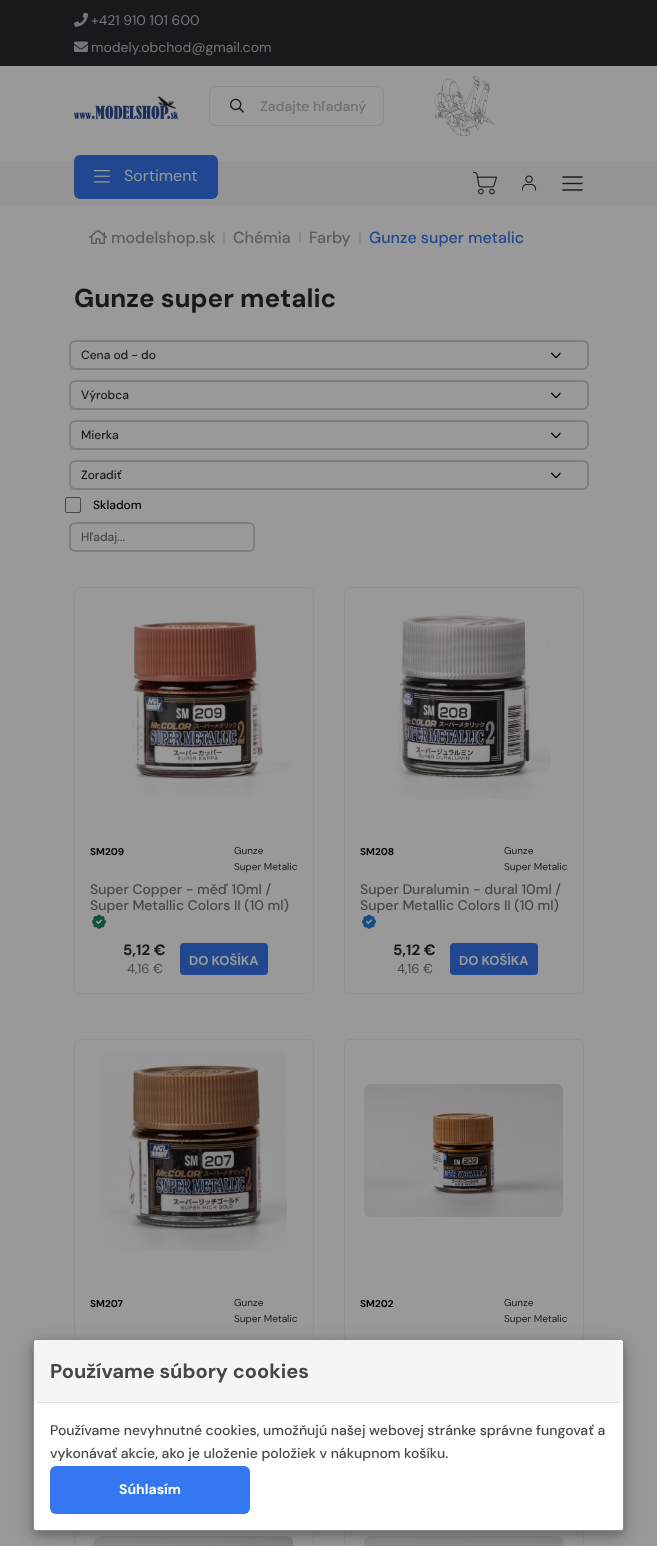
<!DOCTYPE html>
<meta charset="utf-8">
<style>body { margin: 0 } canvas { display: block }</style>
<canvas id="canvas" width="657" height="1546"></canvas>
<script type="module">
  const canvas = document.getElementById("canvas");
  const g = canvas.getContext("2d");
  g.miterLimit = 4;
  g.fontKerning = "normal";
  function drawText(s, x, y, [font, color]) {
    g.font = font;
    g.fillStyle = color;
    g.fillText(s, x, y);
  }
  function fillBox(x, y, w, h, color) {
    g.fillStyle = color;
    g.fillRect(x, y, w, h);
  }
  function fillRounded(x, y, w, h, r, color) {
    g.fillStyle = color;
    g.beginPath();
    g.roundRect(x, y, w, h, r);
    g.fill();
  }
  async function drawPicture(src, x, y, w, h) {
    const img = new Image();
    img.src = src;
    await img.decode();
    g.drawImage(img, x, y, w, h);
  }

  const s1 = ["14px DM Sans", "#74747A"];
  const s2 = ["500 14px DM Sans", "#707070"];
  const s3 = ["16px DM Sans", "#999999"];
  const s4 = ["500 16px DM Sans", "#5C5C5C"];
  const s5 = ["500 16px DM Sans", "#204790"];
  const s6 = ["bold 26px DM Sans", "#19191D"];
  const s7 = ["500 12px DM Sans", "#19191D"];
  const s8 = ["500 12px DM Sans", "#000000"];
  const s9 = ["500 12px DM Sans", "#474747"];
  const s10 = ["bold 10px DM Sans", "#000000"];
  const s11 = ["10px DM Sans", "#19191D"];
  const s12 = ["500 14px DM Sans", "#474747"];
  const s13 = ["bold 15px DM Sans", "#19191D"];
  const s14 = ["13px DM Sans", "#474747"];
  const s15 = ["bold 13px DM Sans", "#999999"];
  const s16 = ["bold 20px DM Sans", "#474747"];
  const s17 = ["bold 14px DM Sans", "#FFFFFF"];

  fillBox(0, 0, 657, 1546, "#999999");
  fillBox(0, 0, 657, 66, "#19191D");
  await drawPicture("pic1.png", 74, 12, 14, 15);
  drawText("+421 910 101 600", 91, 25, s1);
  await drawPicture("pic2.png", 74, 41, 14, 11);
  drawText("modely.obchod@gmail.com", 91, 52, s1);
  await drawPicture("pic3.png", 74, 96, 104, 23);
  g.beginPath();
  g.roundRect(209.5, 86.5, 174, 39, 5.5);
  g.strokeStyle = "#8C8C8C";
  g.stroke();
  await drawPicture("pic4.png", 230, 98, 14, 15);
  drawText("Zadajte hľadaný", 260, 111, s2);
  await drawPicture("pic5.png", 434, 76, 60, 60);
  fillBox(0, 161, 657, 44, "#949494");
  await drawPicture("pic6.png", 473, 171, 24, 24);
  await drawPicture("pic7.png", 521, 175, 16, 16);
  await drawPicture("pic8.png", 562, 176, 21, 15);
  fillRounded(74, 155, 144, 44, 6, "#204790");
  await drawPicture("pic9.png", 94, 170, 16, 13);
  drawText("Sortiment", 124, 181, s3);
  await drawPicture("pic10.png", 89, 230, 18, 14);
  drawText("modelshop.sk", 111, 243, s4);
  fillBox(223, 232, 2, 11, "#898989");
  drawText("Chémia", 233, 243, s4);
  fillBox(299, 232, 2, 11, "#898989");
  drawText("Farby", 309, 243, s4);
  fillBox(359, 232, 2, 11, "#898989");
  drawText("Gunze super metalic", 369, 243, s5);
  drawText("Gunze super metalic", 74, 307, s6);
  await drawPicture("pic11.png", 551, 352, 10, 6);
  g.beginPath();
  g.roundRect(70, 341, 518, 28, 5);
  g.strokeStyle = "#7A7F82";
  g.lineWidth = 2;
  g.stroke();
  drawText("Cena od - do", 81, 359, s7);
  await drawPicture("pic11.png", 551, 392, 10, 6);
  g.beginPath();
  g.roundRect(70, 381, 518, 28, 5);
  g.stroke();
  drawText("Výrobca", 81, 399, s7);
  await drawPicture("pic11.png", 551, 432, 10, 6);
  g.beginPath();
  g.roundRect(70, 421, 518, 28, 5);
  g.stroke();
  drawText("Mierka", 81, 439, s7);
  await drawPicture("pic11.png", 551, 472, 10, 6);
  g.beginPath();
  g.roundRect(70, 461, 518, 28, 5);
  g.stroke();
  drawText("Zoradiť", 81, 479, s7);
  g.beginPath();
  g.roundRect(65.5, 497.5, 15, 15, 1.5);
  g.strokeStyle = "#474747";
  g.lineWidth = 1;
  g.stroke();
  drawText("Skladom", 93, 509, s8);
  g.beginPath();
  g.roundRect(70, 523, 184, 28, 5);
  g.strokeStyle = "#7A7F82";
  g.lineWidth = 2;
  g.stroke();
  drawText("Hľadaj...", 81, 541, s9);
  g.beginPath();
  g.roundRect(74.5, 587.5, 239, 406, 5.5);
  g.strokeStyle = "#919191";
  g.lineWidth = 1;
  g.stroke();
  await drawPicture("pic12.png", 131, 619, 160, 178);
  drawText("SM209", 90, 855, s10);
  drawText("Gunze", 234, 854, s11);
  drawText("Super Metalic", 234, 870, s11);
  drawText("Super Copper - měď 10ml /", 90, 894, s12);
  drawText("Super Metallic Colors II (10 ml)", 90, 910, s12);
  await drawPicture("pic13.png", 92, 914, 14, 15);
  drawText("5,12 €", 123, 955, s13);
  drawText("4,16 €", 127, 973, s14);
  fillRounded(180, 943, 88, 32, 4, "#204790");
  drawText("DO KOŠÍKA", 189, 965, s15);
  g.beginPath();
  g.roundRect(344.5, 587.5, 239, 406, 5.5);
  g.stroke();
  await drawPicture("pic14.png", 395, 615, 155, 184);
  drawText("SM208", 360, 855, s10);
  drawText("Gunze", 504, 854, s11);
  drawText("Super Metalic", 504, 870, s11);
  drawText("Super Duralumin - dural 10ml /", 360, 894, s12);
  drawText("Super Metallic Colors II (10 ml)", 360, 910, s12);
  await drawPicture("pic15.png", 362, 914, 14, 15);
  drawText("5,12 €", 393, 955, s13);
  drawText("4,16 €", 397, 973, s14);
  fillRounded(450, 943, 88, 32, 4, "#204790");
  drawText("DO KOŠÍKA", 459, 965, s15);
  g.beginPath();
  g.roundRect(74.5, 1039.5, 239, 406, 5.5);
  g.stroke();
  await drawPicture("pic16.png", 100, 1051, 187, 200);
  drawText("SM207", 90, 1307, s10);
  drawText("Gunze", 234, 1306, s11);
  drawText("Super Metalic", 234, 1322, s11);
  g.beginPath();
  g.roundRect(344.5, 1039.5, 239, 406, 5.5);
  g.stroke();
  await drawPicture("pic17.png", 364, 1084, 199, 133);
  drawText("SM202", 360, 1307, s10);
  drawText("Gunze", 504, 1306, s11);
  drawText("Super Metalic", 504, 1322, s11);
  g.strokeRect(74.5, 1491.5, 239, 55);
  await drawPicture("pic18.png", 94, 1536, 199, 10);
  g.strokeRect(344.5, 1491.5, 239, 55);
  await drawPicture("pic19.png", 364, 1536, 199, 10);
  g.fillStyle = "rgba(0, 0, 0, 0.19)";
  g.filter = "blur(10px)";
  g.beginPath();
  g.roundRect(33, 1345, 591, 192, 3);
  g.fill();
  g.filter = "none";
  g.fillStyle = "rgba(0, 0, 0, 0.2)";
  g.filter = "blur(4px)";
  g.beginPath();
  g.roundRect(33, 1343, 591, 192, 3);
  g.fill();
  g.filter = "none";
  g.fillStyle = "#FEFEFE";
  g.beginPath();
  g.roundRect(33.5, 1339.5, 590, 191, 2.5);
  g.fill();
  g.strokeStyle = "#888888";
  g.stroke();
  fillRounded(34, 1340, 589, 63, 6, "#F5F5F5");
  fillBox(37, 1402, 583, 1, "#DEE2E6");
  drawText("Používame súbory cookies", 50, 1378, s16);
  drawText("Používame nevyhnutné cookies, umožňujú našej webovej stránke správne fungovať a", 50, 1435, s12);
  drawText("vykonávať akcie, ako je uloženie položiek v nákupnom košíku.", 50, 1458, s12);
  fillRounded(50, 1466, 200, 48, 6, "#3577F0");
  drawText("Súhlasím", 119, 1494, s17);
</script>
